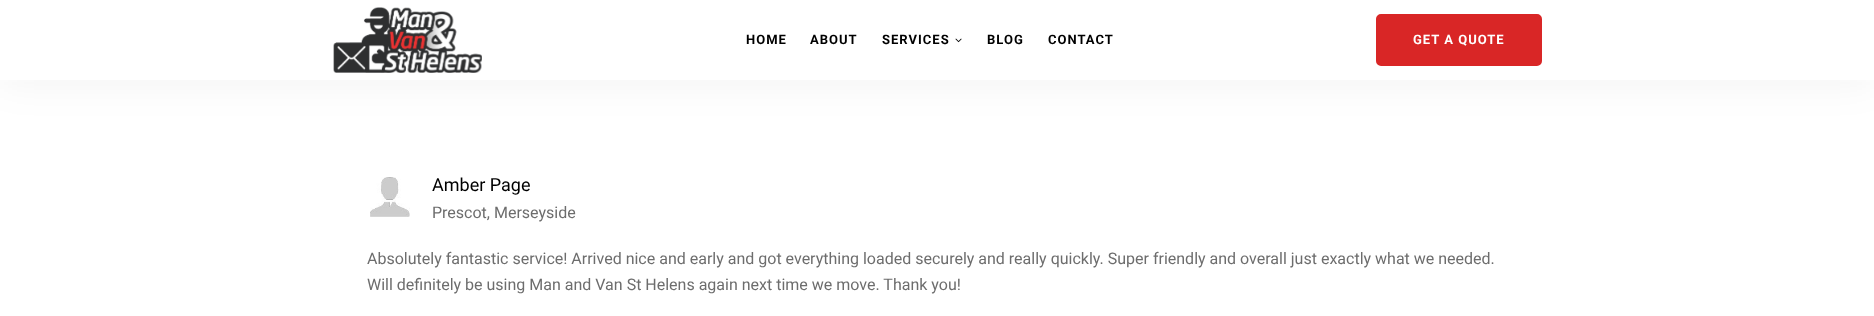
<!DOCTYPE html>
<meta charset="utf-8">
<style>body { margin: 0 } canvas { display: block }</style>
<canvas id="canvas" width="1874" height="316"></canvas>
<script type="module">
  const canvas = document.getElementById("canvas");
  const g = canvas.getContext("2d");
  g.miterLimit = 4;
  g.fontKerning = "normal";
  function drawText(s, x, y, [font, color]) {
    g.font = font;
    g.fillStyle = color;
    g.fillText(s, x, y);
  }
  function fillBox(x, y, w, h, color) {
    g.fillStyle = color;
    g.fillRect(x, y, w, h);
  }
  async function drawPicture(src, x, y, w, h) {
    const img = new Image();
    img.src = src;
    await img.decode();
    g.drawImage(img, x, y, w, h);
  }

  const s1 = ["bold 13px Roboto", "#000000"];
  const s2 = ["bold 13px Roboto", "#FFFFFF"];
  const s3 = ["18px Roboto", "#000000"];
  const s4 = ["16px Roboto", "#6D6D6D"];

  fillBox(0, 0, 1874, 316, "#FFFFFF");
  g.fillStyle = "rgba(15, 15, 15, 0.05)";
  g.filter = "blur(20px)";
  g.beginPath();
  g.rect(0, -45, 1874, 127);
  g.fill();
  g.filter = "none";
  fillBox(0, 0, 1874, 80, "#FFFFFF");
  await drawPicture("pic1.png", 333, 7, 149, 66);
  g.letterSpacing = "1px";
  drawText("HOME", 746, 44, s1);
  drawText("ABOUT", 810, 44, s1);
  drawText("SERVICES", 882, 44, s1);
  await drawPicture("pic2.png", 955, 38, 7, 5);
  drawText("BLOG", 987, 44, s1);
  drawText("CONTACT", 1048, 44, s1);
  g.fillStyle = "#D92626";
  g.beginPath();
  g.roundRect(1377, 15, 164, 50, 4);
  g.fill();
  g.strokeStyle = "#D92626";
  g.lineWidth = 2;
  g.stroke();
  drawText("GET A QUOTE", 1413, 44, s2);
  await drawPicture("pic3.png", 370, 177, 40, 40);
  g.letterSpacing = "0px";
  drawText("Amber Page", 432, 191, s3);
  drawText("Prescot, Merseyside", 432, 218, s4);
  drawText("Absolutely fantastic service! Arrived nice and early and got everything loaded securely and really quickly. Super friendly and overall just exactly what we needed.", 367, 264, s4);
  drawText("Will definitely be using Man and Van St Helens again next time we move. Thank you!", 367, 290, s4);
</script>
